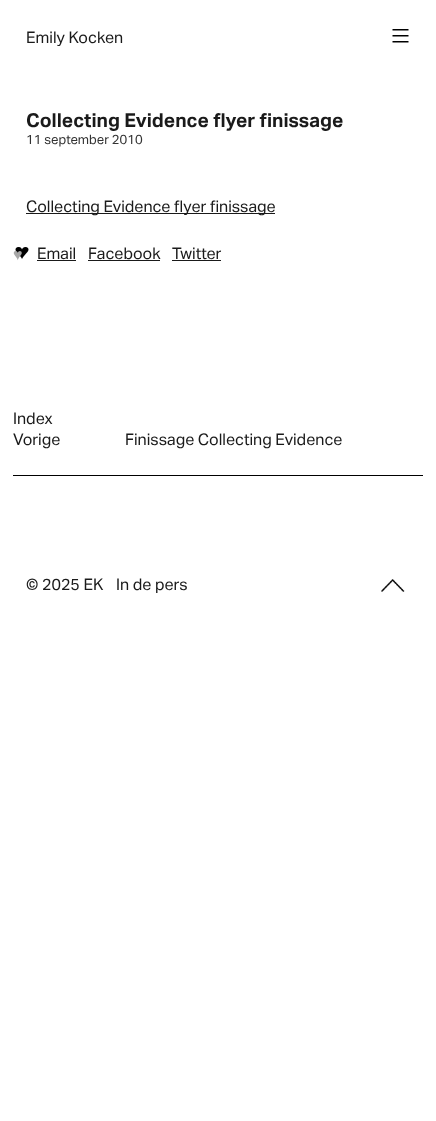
<!DOCTYPE html>
<meta charset="utf-8">
<style>body { margin: 0 } canvas { display: block }</style>
<canvas id="canvas" width="436" height="1121"></canvas>
<script type="module">
  const canvas = document.getElementById("canvas");
  const g = canvas.getContext("2d");
  g.miterLimit = 4;
  g.fontKerning = "normal";
  function drawText(s, x, y, [font, color]) {
    g.font = font;
    g.fillStyle = color;
    g.fillText(s, x, y);
  }
  function fillBox(x, y, w, h, color) {
    g.fillStyle = color;
    g.fillRect(x, y, w, h);
  }
  async function drawPicture(src, x, y, w, h) {
    const img = new Image();
    img.src = src;
    await img.decode();
    g.drawImage(img, x, y, w, h);
  }

  const s1 = ["16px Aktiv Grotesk", "#1A1A1A"];
  const s2 = ["bold 19.25px Aktiv Grotesk", "#1A1A1A"];
  const s3 = ["13px Aktiv Grotesk", "#333333"];
  const s4 = ["16px Liberation Sans", "#A8A8A8"];

  fillBox(0, 0, 436, 1121, "#FFFFFF");
  drawText("Emily Kocken", 26, 43, s1);
  await drawPicture("pic1.png", 392, 29, 17, 14);
  drawText("Collecting Evidence flyer finissage", 26, 127, s2);
  drawText("11 september 2010", 26, 144, s3);
  fillBox(26, 213, 249, 1, "#1A1A1A");
  drawText("Collecting Evidence flyer finissage", 26, 212, s1);
  await drawPicture("pic2.png", 15, 247, 14, 12);
  drawText("♥︎", 13, 260, s4);
  drawText("Email", 37, 259, s1);
  fillBox(37, 260, 39, 1, "#1A1A1A");
  drawText("Facebook", 88, 259, s1);
  fillBox(88, 260, 72, 1, "#1A1A1A");
  drawText("Twitter", 172, 259, s1);
  fillBox(172, 260, 49, 1, "#1A1A1A");
  drawText("Index", 13, 424, s1);
  drawText("Vorige", 13, 445, s1);
  drawText("Finissage Collecting Evidence", 125, 445, s1);
  fillBox(13, 475, 410, 1, "#000000");
  drawText("© 2025 EK", 26, 590, s1);
  drawText("In de pers", 116, 590, s1);
  await drawPicture("pic3.png", 381, 579, 24, 13);
</script>
